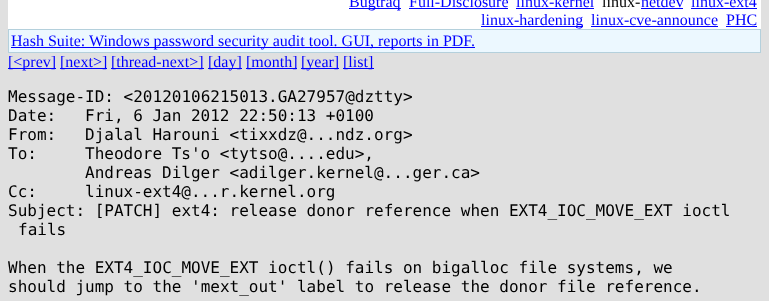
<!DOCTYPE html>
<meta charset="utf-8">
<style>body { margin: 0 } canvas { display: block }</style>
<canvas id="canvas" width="769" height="301"></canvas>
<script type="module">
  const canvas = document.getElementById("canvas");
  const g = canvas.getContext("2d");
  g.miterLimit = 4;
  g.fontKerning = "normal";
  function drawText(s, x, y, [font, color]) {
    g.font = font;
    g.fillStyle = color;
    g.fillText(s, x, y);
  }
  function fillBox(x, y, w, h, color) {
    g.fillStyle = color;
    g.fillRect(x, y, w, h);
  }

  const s1 = ["16px Liberation Serif", "#0000FF"];
  const s2 = ["16px Liberation Serif", "#000000"];
  const s3 = ["16px DejaVu Sans Mono", "#000000"];

  fillBox(0, 0, 769, 301, "#E0E0E0");
  fillBox(8, 0, 753, 29, "#FFFFFF");
  fillBox(349, 8, 52, 1, "#0000FF");
  drawText("Bugtraq", 349, 7, s1);
  drawText("Full-Disclosure", 409, 7, s1);
  fillBox(409, 8, 99, 1, "#0000FF");
  drawText("linux-kernel", 516, 7, s1);
  fillBox(516, 8, 78, 1, "#0000FF");
  drawText("linux-", 602, 7, s2);
  drawText("netdev", 641, 7, s1);
  fillBox(641, 8, 42, 1, "#0000FF");
  drawText("linux-ext4", 691, 7, s1);
  fillBox(691, 8, 66, 1, "#0000FF");
  fillBox(481, 26, 102, 1, "#0000FF");
  drawText("linux-hardening", 481, 25, s1);
  drawText("linux-cve-announce", 591, 25, s1);
  fillBox(591, 26, 127, 1, "#0000FF");
  drawText("PHC", 726, 25, s1);
  fillBox(726, 26, 31, 1, "#0000FF");
  fillBox(8, 29, 753, 24, "#B4D0DC");
  fillBox(9, 30, 751, 22, "#ECF8FF");
  fillBox(11, 47, 464, 1, "#0000FF");
  drawText("Hash Suite: Windows password security audit tool. GUI, reports in PDF.", 11, 46, s1);
  fillBox(8, 68, 48, 1, "#0000FF");
  drawText("[<prev]", 8, 67, s1);
  fillBox(60, 68, 47, 1, "#0000FF");
  drawText("[next>]", 60, 67, s1);
  fillBox(111, 68, 93, 1, "#0000FF");
  drawText("[thread-next>]", 111, 67, s1);
  fillBox(208, 68, 34, 1, "#0000FF");
  drawText("[day]", 208, 67, s1);
  fillBox(246, 68, 51, 1, "#0000FF");
  drawText("[month]", 246, 67, s1);
  fillBox(301, 68, 38, 1, "#0000FF");
  drawText("[year]", 301, 67, s1);
  fillBox(343, 68, 31, 1, "#0000FF");
  drawText("[list]", 343, 67, s1);
  drawText("Message-ID: <20120106215013.GA27957@dztty>", 8, 102, s3);
  drawText("Date:", 8, 121, s3);
  drawText("Fri, 6 Jan 2012 22:50:13 +0100", 85, 121, s3);
  drawText("From:", 8, 140, s3);
  drawText("Djalal Harouni <tixxdz@...ndz.org>", 85, 140, s3);
  drawText("To:", 8, 159, s3);
  drawText("Theodore Ts'o <tytso@....edu>,", 85, 159, s3);
  drawText("Andreas Dilger <adilger.kernel@...ger.ca>", 85, 178, s3);
  drawText("Cc:", 8, 197, s3);
  drawText("linux-ext4@...r.kernel.org", 85, 197, s3);
  drawText("Subject: [PATCH] ext4: release donor reference when EXT4_IOC_MOVE_EXT ioctl", 8, 216, s3);
  drawText("fails", 18, 235, s3);
  drawText("When the EXT4_IOC_MOVE_EXT ioctl() fails on bigalloc file systems, we", 8, 273, s3);
  drawText("should jump to the 'mext_out' label to release the donor file reference.", 8, 292, s3);
</script>
